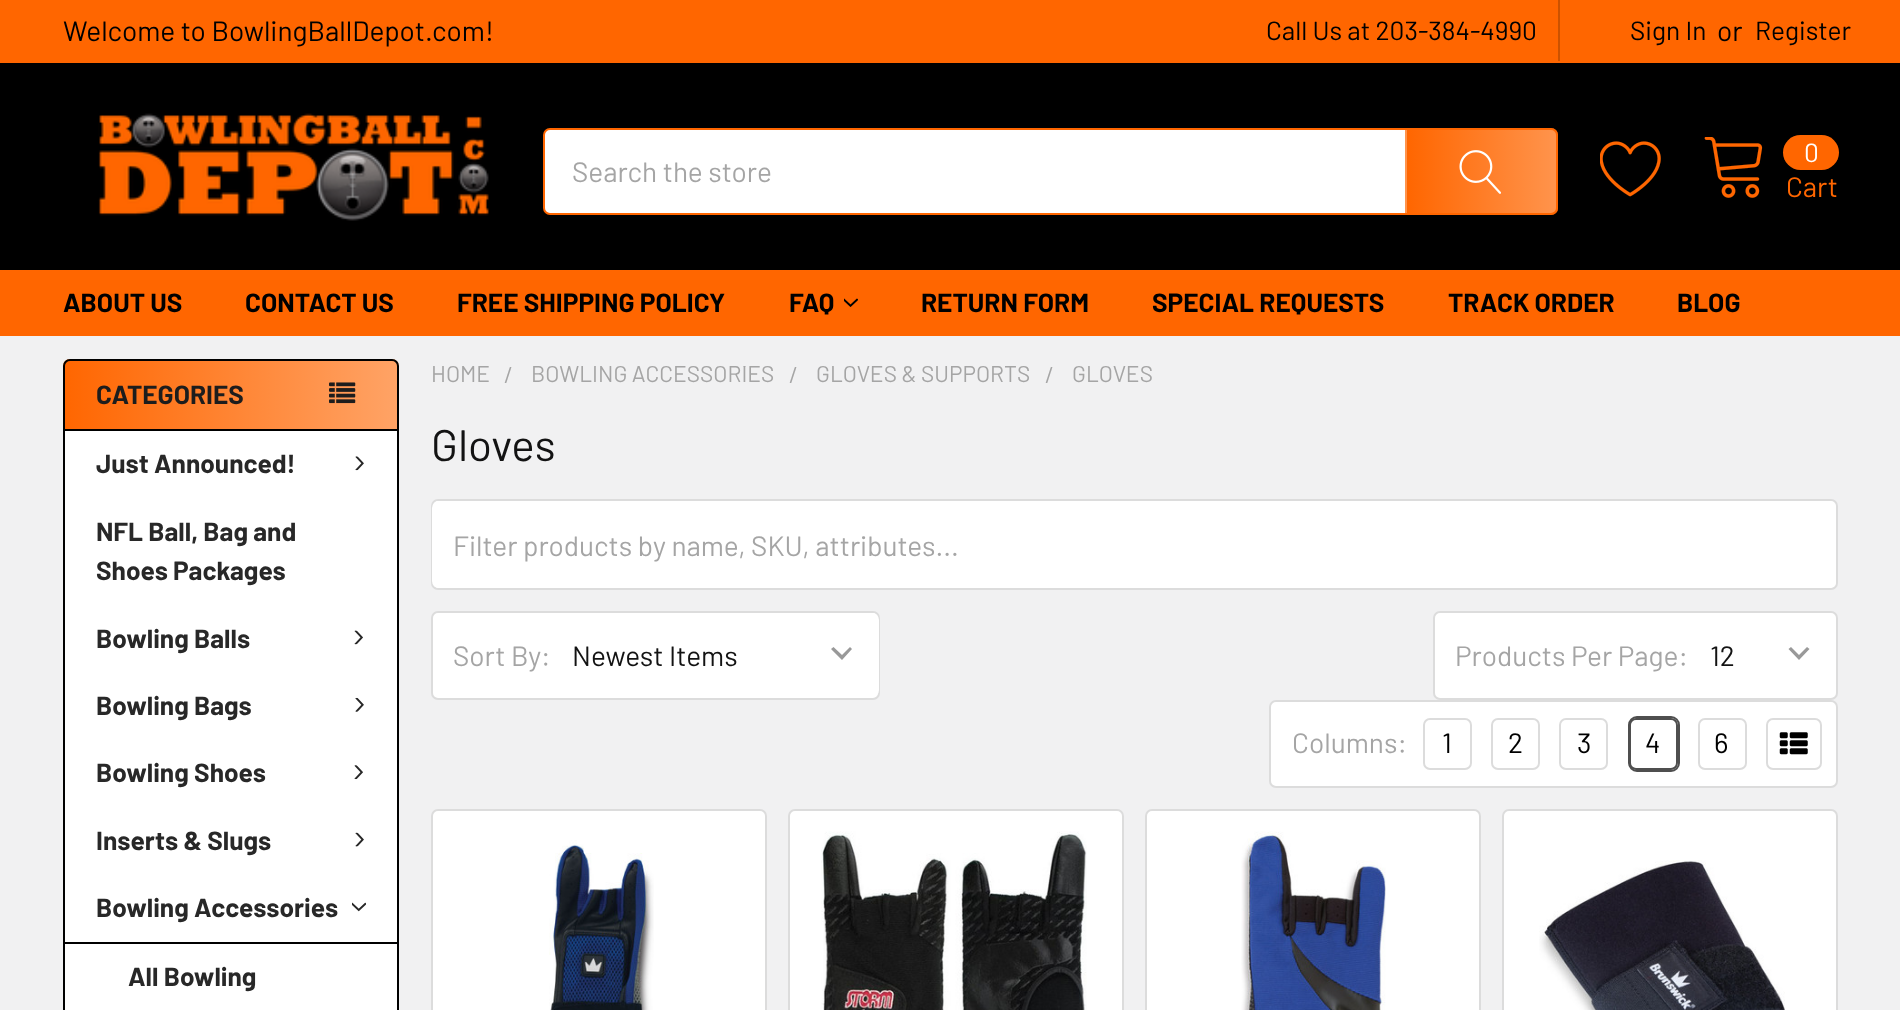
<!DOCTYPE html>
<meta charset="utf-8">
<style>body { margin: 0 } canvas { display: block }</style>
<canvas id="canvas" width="1900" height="1010"></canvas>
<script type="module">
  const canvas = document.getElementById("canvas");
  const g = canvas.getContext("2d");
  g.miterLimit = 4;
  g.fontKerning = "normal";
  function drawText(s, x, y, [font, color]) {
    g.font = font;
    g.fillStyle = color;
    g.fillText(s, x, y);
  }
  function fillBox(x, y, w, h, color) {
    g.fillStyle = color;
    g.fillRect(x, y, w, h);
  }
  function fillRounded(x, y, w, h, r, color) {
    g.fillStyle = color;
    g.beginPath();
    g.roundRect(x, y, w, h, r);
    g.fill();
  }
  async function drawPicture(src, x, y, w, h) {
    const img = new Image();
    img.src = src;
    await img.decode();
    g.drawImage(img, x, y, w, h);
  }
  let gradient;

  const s1 = ["28px Barlow", "#000000"];
  const s2 = ["26.25px Barlow", "#000000"];
  const s3 = ["28px Barlow", "#A5A5A5"];
  const s4 = ["26.25px Barlow", "#FFFFFF"];
  const s5 = ["28px Barlow", "#FF6600"];
  const s6 = ["bold 26.25px Barlow", "#000000"];
  const s7 = ["bold 26.25px Barlow", "#1D1D1D"];
  const s8 = ["bold 26.25px Barlow", "#282828"];
  const s9 = ["22.75px Barlow", "#A5A5A5"];
  const s10 = ["44px Barlow", "#131313"];
  const s11 = ["28px Barlow", "#131313"];

  fillBox(0, 0, 1900, 1010, "#F1F1F2");
  fillBox(0, 63, 1900, 207, "#000000");
  fillBox(0, 0, 1900, 63, "#FF6600");
  drawText("Welcome to BowlingBallDepot.com!", 63, 41, s1);
  drawText("Call Us at 203-384-4990", 1266, 40, s2);
  fillBox(1558, 0, 2, 61, "#CC5200");
  drawText("Sign In", 1630, 40, s2);
  drawText("or", 1717, 41, s1);
  drawText("Register", 1755, 40, s2);
  await drawPicture("pic1.png", 98, 113, 391, 108);
  g.fillStyle = "#FFFFFF";
  g.beginPath();
  g.roundRect(544, 129, 1013, 85, 6);
  g.fill();
  g.strokeStyle = "#FF6600";
  g.lineWidth = 2;
  g.stroke();
  drawText("Search the store", 572, 182, s3);
  gradient = g.createLinearGradient(1258, 172, 1407, 172);
  gradient.addColorStop(0, "#FF6600");
  gradient.addColorStop(1, "rgba(255, 102, 0, 0.7)");
  g.fillStyle = gradient;
  g.fillRect(1405, 128, 2, 87);
  g.save();
  g.beginPath();
  g.roundRect(1405, 128, 153, 87, [0, 7, 7, 0]);
  g.clip();
  gradient = g.createLinearGradient(1407, 172, 1556, 172);
  gradient.addColorStop(0, "#FF6600");
  gradient.addColorStop(1, "rgba(255, 102, 0, 0.7)");
  g.fillStyle = gradient;
  g.fillRect(1407, 128, 149, 87);
  gradient = g.createLinearGradient(1556, 172, 1705, 172);
  gradient.addColorStop(0, "#FF6600");
  gradient.addColorStop(1, "rgba(255, 102, 0, 0.7)");
  g.fillStyle = gradient;
  g.fillRect(1556, 128, 2, 87);
  g.restore();
  await drawPicture("pic2.png", 1459, 150, 42, 44);
  await drawPicture("pic3.png", 1600, 141, 61, 56);
  await drawPicture("pic4.png", 1704, 137, 59, 61);
  fillRounded(1783, 135, 56, 35, 17.5, "#FF6600");
  drawText("0", 1804, 162, s4);
  drawText("Cart", 1786, 197, s5);
  fillBox(0, 270, 1900, 66, "#FF6600");
  drawText("ABOUT US", 63, 312, s6);
  drawText("CONTACT US", 245, 312, s6);
  drawText("FREE SHIPPING POLICY", 457, 312, s6);
  drawText("FAQ", 789, 312, s6);
  await drawPicture("pic5.png", 844, 298, 14, 9);
  drawText("RETURN FORM", 921, 312, s6);
  drawText("SPECIAL REQUESTS", 1152, 312, s6);
  drawText("TRACK ORDER", 1448, 312, s6);
  drawText("BLOG", 1677, 312, s6);
  fillRounded(63, 359, 336, 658, 7, "#FFFFFF");
  gradient = g.createLinearGradient(63, 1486, 399, 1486);
  gradient.addColorStop(0, "#FF6600");
  gradient.addColorStop(1, "rgba(255, 102, 0, 0.6)");
  g.fillStyle = gradient;
  g.beginPath();
  g.roundRect(63, 359, 336, 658, 7);
  g.fill();
  g.beginPath();
  g.roundRect(64, 360, 334, 70, [6, 6, 0, 0]);
  g.strokeStyle = "#000000";
  g.stroke();
  drawText("CATEGORIES", 96, 404, s7);
  await drawPicture("pic6.png", 329, 382, 27, 22);
  fillBox(65, 431, 332, 579, "#FFFFFF");
  g.fillStyle = "#000000";
  g.beginPath();
  g.moveTo(63, 430);
  g.lineTo(399, 430);
  g.lineTo(399, 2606);
  g.bezierCurveTo(399, 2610, 396, 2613, 392, 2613);
  g.lineTo(70, 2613);
  g.bezierCurveTo(66, 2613, 63, 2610, 63, 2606);
  g.closePath();
  g.moveTo(65, 430);
  g.lineTo(397, 430);
  g.lineTo(397, 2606);
  g.bezierCurveTo(397, 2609, 395, 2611, 392, 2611);
  g.lineTo(70, 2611);
  g.bezierCurveTo(67, 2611, 65, 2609, 65, 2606);
  g.closePath();
  g.fill("evenodd");
  drawText("Just Announced!", 96, 473, s8);
  await drawPicture("pic7.png", 355, 456, 9, 15);
  drawText("NFL Ball, Bag and", 96, 541, s8);
  drawText("Shoes Packages", 96, 580, s8);
  drawText("Bowling Balls", 96, 648, s8);
  await drawPicture("pic8.png", 354, 630, 9, 15);
  drawText("Bowling Bags", 96, 715, s8);
  await drawPicture("pic9.png", 355, 697, 9, 15);
  drawText("Bowling Shoes", 96, 782, s8);
  await drawPicture("pic10.png", 354, 765, 9, 15);
  drawText("Inserts & Slugs", 96, 850, s8);
  await drawPicture("pic11.png", 355, 832, 9, 15);
  drawText("Bowling Accessories", 96, 917, s8);
  await drawPicture("pic12.png", 352, 902, 14, 10);
  fillBox(65, 942, 332, 2, "#000000");
  drawText("All Bowling", 128, 986, s8);
  drawText("HOME", 431, 382, s9);
  drawText("/", 504, 383, s9);
  drawText("BOWLING ACCESSORIES", 531, 382, s9);
  drawText("/", 789, 383, s9);
  drawText("GLOVES & SUPPORTS", 816, 382, s9);
  drawText("/", 1045, 383, s9);
  drawText("GLOVES", 1072, 382, s9);
  drawText("Gloves", 431, 461, s10);
  g.fillStyle = "#FFFFFF";
  g.beginPath();
  g.roundRect(432, 500, 1405, 89, 6);
  g.fill();
  g.strokeStyle = "#DCDCDC";
  g.stroke();
  fillRounded(432, 501, 1404, 87, 7, "#FFFFFF");
  drawText("Filter products by name, SKU, attributes...", 453, 556, s3);
  g.fillStyle = "#FFFFFF";
  g.beginPath();
  g.roundRect(432, 612, 447, 87, 6);
  g.fill();
  g.stroke();
  drawText("Sort By:", 453, 666, s3);
  fillRounded(567, 613, 312, 84, 7, "#FFFFFF");
  g.fillStyle = "#999999";
  g.beginPath();
  g.moveTo(850, 647);
  g.lineTo(842, 655);
  g.lineTo(833.5, 647);
  g.lineTo(831, 649);
  g.lineTo(842, 660);
  g.lineTo(852, 649);
  g.closePath();
  g.fill();
  drawText("Newest Items", 572, 666, s11);
  g.fillStyle = "#FFFFFF";
  g.beginPath();
  g.roundRect(1434, 612, 403, 87, 6);
  g.fill();
  g.stroke();
  drawText("Products Per Page:", 1455, 666, s3);
  g.fillStyle = "#999999";
  g.beginPath();
  g.moveTo(1807, 647);
  g.lineTo(1799, 655);
  g.lineTo(1791, 647);
  g.lineTo(1788.5, 649);
  g.lineTo(1799, 660);
  g.lineTo(1809.5, 649);
  g.closePath();
  g.fill();
  drawText("12", 1710, 666, s11);
  g.fillStyle = "#FFFFFF";
  g.beginPath();
  g.roundRect(1270, 701, 567, 86, 6);
  g.fill();
  g.stroke();
  drawText("Columns:", 1292, 753, s3);
  g.beginPath();
  g.roundRect(1424, 719, 47, 50, 6);
  g.stroke();
  drawText("1", 1442, 753, s1);
  g.beginPath();
  g.roundRect(1492, 719, 47, 50, 6);
  g.stroke();
  drawText("2", 1508, 753, s1);
  g.beginPath();
  g.roundRect(1560, 719, 47, 50, 6);
  g.stroke();
  drawText("3", 1577, 753, s1);
  g.beginPath();
  g.roundRect(1629, 717, 50, 54, 8);
  g.strokeStyle = "#4F4F4F";
  g.stroke();
  g.beginPath();
  g.roundRect(1630, 719, 47, 50, 6);
  g.stroke();
  drawText("4", 1645, 753, s1);
  g.beginPath();
  g.roundRect(1699, 719, 47, 50, 6);
  g.strokeStyle = "#DCDCDC";
  g.stroke();
  drawText("6", 1714, 753, s1);
  g.beginPath();
  g.roundRect(1767, 719, 54, 50, 6);
  g.stroke();
  await drawPicture("pic13.png", 1779, 732, 29, 23);
  g.fillStyle = "#FFFFFF";
  g.beginPath();
  g.roundRect(432, 810, 334, 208, 6);
  g.fill();
  g.stroke();
  await drawPicture("pic14.png", 549, 840, 105, 170);
  g.beginPath();
  g.roundRect(789, 810, 334, 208, 6);
  g.fill();
  g.stroke();
  await drawPicture("pic15.png", 821, 831, 266, 179);
  g.beginPath();
  g.roundRect(1146, 810, 334, 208, 6);
  g.fill();
  g.stroke();
  await drawPicture("pic16.png", 1241, 831, 145, 179);
  g.beginPath();
  g.roundRect(1503, 810, 334, 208, 6);
  g.fill();
  g.stroke();
  await drawPicture("pic17.png", 1539, 860, 246, 150);
</script>
